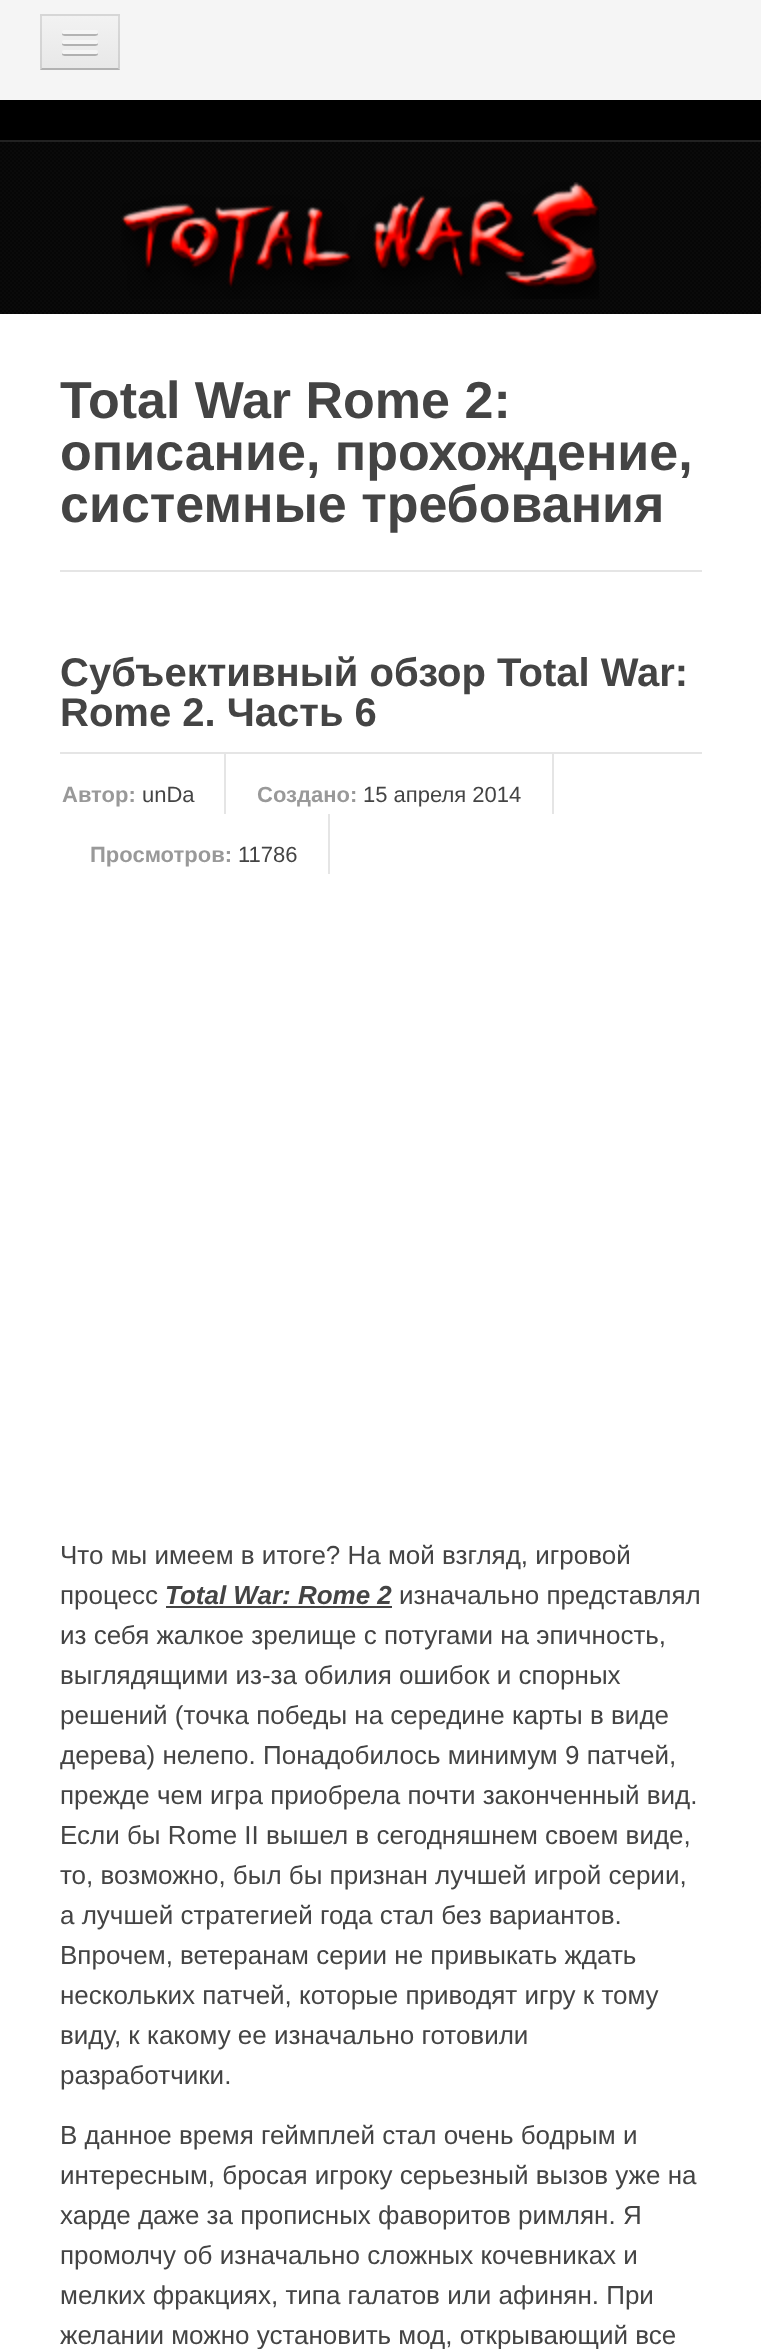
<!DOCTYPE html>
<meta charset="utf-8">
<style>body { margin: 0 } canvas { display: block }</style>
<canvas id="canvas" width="761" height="2349"></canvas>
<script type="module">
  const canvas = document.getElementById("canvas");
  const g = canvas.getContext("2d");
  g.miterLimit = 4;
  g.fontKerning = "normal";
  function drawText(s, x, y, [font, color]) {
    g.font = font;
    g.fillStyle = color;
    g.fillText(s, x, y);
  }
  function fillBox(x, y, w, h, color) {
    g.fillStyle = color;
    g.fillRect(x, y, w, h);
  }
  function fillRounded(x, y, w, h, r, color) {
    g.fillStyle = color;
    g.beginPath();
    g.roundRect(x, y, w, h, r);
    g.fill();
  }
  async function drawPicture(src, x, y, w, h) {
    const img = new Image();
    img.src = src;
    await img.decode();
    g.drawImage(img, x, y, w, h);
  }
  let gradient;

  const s1 = ["bold 52px Liberation Sans", "#444444"];
  const s2 = ["bold 40px Liberation Sans", "#444444"];
  const s3 = ["bold 22px Liberation Sans", "#999999"];
  const s4 = ["22px Liberation Sans", "#444444"];
  const s5 = ["26px Liberation Sans", "#444444"];
  const s6 = ["italic bold 26px Liberation Sans", "#444444"];

  fillBox(0, 0, 761, 2349, "#FFFFFF");
  fillBox(0, 0, 761, 100, "#F5F5F5");
  fillBox(40, 14, 80, 56, "#EEEEEE");
  gradient = g.createLinearGradient(80, 16, 80, 68);
  gradient.addColorStop(0, "#F2F2F2");
  gradient.addColorStop(1, "#E8E8E8");
  g.fillStyle = gradient;
  g.fillRect(40, 16, 80, 52);
  g.fillStyle = "#D6D6D6";
  g.beginPath();
  g.moveTo(40, 14);
  g.lineTo(120, 14);
  g.lineTo(118, 16);
  g.lineTo(42, 16);
  g.closePath();
  g.fill();
  g.fillStyle = "rgba(0, 0, 0, 0.1)";
  g.beginPath();
  g.moveTo(120, 14);
  g.lineTo(120, 70);
  g.lineTo(118, 68);
  g.lineTo(118, 16);
  g.closePath();
  g.fill();
  g.fillStyle = "rgba(0, 0, 0, 0.25)";
  g.beginPath();
  g.moveTo(120, 70);
  g.lineTo(40, 70);
  g.lineTo(42, 68);
  g.lineTo(118, 68);
  g.closePath();
  g.fill();
  g.fillStyle = "rgba(0, 0, 0, 0.1)";
  g.beginPath();
  g.moveTo(40, 70);
  g.lineTo(40, 14);
  g.lineTo(42, 16);
  g.lineTo(42, 68);
  g.closePath();
  g.fill();
  g.fillStyle = "#B3B3B3";
  g.beginPath();
  g.moveTo(62.5, 33);
  g.bezierCurveTo(60, 37, 69, 36, 69.5, 36);
  g.lineTo(90.5, 36);
  g.bezierCurveTo(91, 36, 100, 37, 97.5, 33);
  g.bezierCurveTo(97.5, 33.5, 96.5, 34, 96, 34);
  g.lineTo(64, 34);
  g.bezierCurveTo(63.5, 34, 62.5, 33.5, 62.5, 33);
  g.closePath();
  g.fill();
  fillRounded(62, 30, 36, 4, 2, "#F5F5F5");
  g.fillStyle = "#B1B1B1";
  g.beginPath();
  g.moveTo(62.5, 43);
  g.bezierCurveTo(60, 47, 69, 46, 69.5, 46);
  g.lineTo(90.5, 46);
  g.bezierCurveTo(91, 46, 100, 47, 97.5, 43);
  g.bezierCurveTo(97.5, 43.5, 96.5, 44, 96, 44);
  g.lineTo(64, 44);
  g.bezierCurveTo(63.5, 44, 62.5, 43.5, 62.5, 43);
  g.closePath();
  g.fill();
  fillRounded(62, 40, 36, 4, 2, "#F5F5F5");
  g.fillStyle = "#B0B0B0";
  g.beginPath();
  g.moveTo(62.5, 53);
  g.bezierCurveTo(60, 57, 69, 56, 69.5, 56);
  g.lineTo(90.5, 56);
  g.bezierCurveTo(91, 56, 100, 57, 97.5, 53);
  g.bezierCurveTo(97.5, 53.5, 96.5, 54, 96, 54);
  g.lineTo(64, 54);
  g.bezierCurveTo(63.5, 54, 62.5, 53.5, 62.5, 53);
  g.closePath();
  g.fill();
  fillRounded(62, 50, 36, 4, 2, "#F5F5F5");
  fillBox(0, 100, 761, 40, "#000000");
  fillBox(0, 140, 761, 2, "#222222");
  await drawPicture("pic1.png", 0, 142, 761, 172);
  await drawPicture("pic2.png", 121, 182, 478, 117);
  fillBox(60, 570, 642, 2, "#E5E5E5");
  drawText("Total War Rome 2:", 60, 418, s1);
  drawText("описание, прохождение,", 60, 470, s1);
  drawText("системные требования", 60, 522, s1);
  drawText("Субъективный обзор Total War:", 60, 686, s2);
  drawText("Rome 2. Часть 6", 60, 726, s2);
  fillBox(60, 752, 642, 2, "#E5E5E5");
  fillBox(224, 754, 2, 60, "#E5E5E5");
  drawText("Автор:", 62, 802, s3);
  drawText("unDa", 142, 802, s4);
  fillBox(552, 754, 2, 60, "#E5E5E5");
  drawText("Создано:", 257, 802, s3);
  drawText("15 апреля 2014", 363, 802, s4);
  fillBox(328, 814, 2, 60, "#E5E5E5");
  drawText("Просмотров:", 90, 862, s3);
  drawText("11786", 238, 862, s4);
  drawText("Что мы имеем в итоге? На мой взгляд, игровой", 60, 1564, s5);
  drawText("процесс", 60, 1604, s5);
  drawText("Total War: Rome 2", 165, 1604, s6);
  fillBox(166, 1606, 226, 2, "#444444");
  drawText("изначально представлял", 399, 1604, s5);
  drawText("из себя жалкое зрелище с потугами на эпичность,", 60, 1644, s5);
  drawText("выглядящими из-за обилия ошибок и спорных", 60, 1684, s5);
  drawText("решений (точка победы на середине карты в виде", 60, 1724, s5);
  drawText("дерева) нелепо. Понадобилось минимум 9 патчей,", 60, 1764, s5);
  drawText("прежде чем игра приобрела почти законченный вид.", 60, 1804, s5);
  drawText("Если бы Rome II вышел в сегодняшнем своем виде,", 60, 1844, s5);
  drawText("то, возможно, был бы признан лучшей игрой серии,", 60, 1884, s5);
  drawText("а лучшей стратегией года стал без вариантов.", 60, 1924, s5);
  drawText("Впрочем, ветеранам серии не привыкать ждать", 60, 1964, s5);
  drawText("нескольких патчей, которые приводят игру к тому", 60, 2004, s5);
  drawText("виду, к какому ее изначально готовили", 60, 2044, s5);
  drawText("разработчики.", 60, 2084, s5);
  drawText("В данное время геймплей стал очень бодрым и", 60, 2144, s5);
  drawText("интересным, бросая игроку серьезный вызов уже на", 60, 2184, s5);
  drawText("харде даже за прописных фаворитов римлян. Я", 60, 2224, s5);
  drawText("промолчу об изначально сложных кочевниках и", 60, 2264, s5);
  drawText("мелких фракциях, типа галатов или афинян. При", 60, 2304, s5);
  drawText("желании можно установить мод, открывающий все", 60, 2344, s5);
</script>
